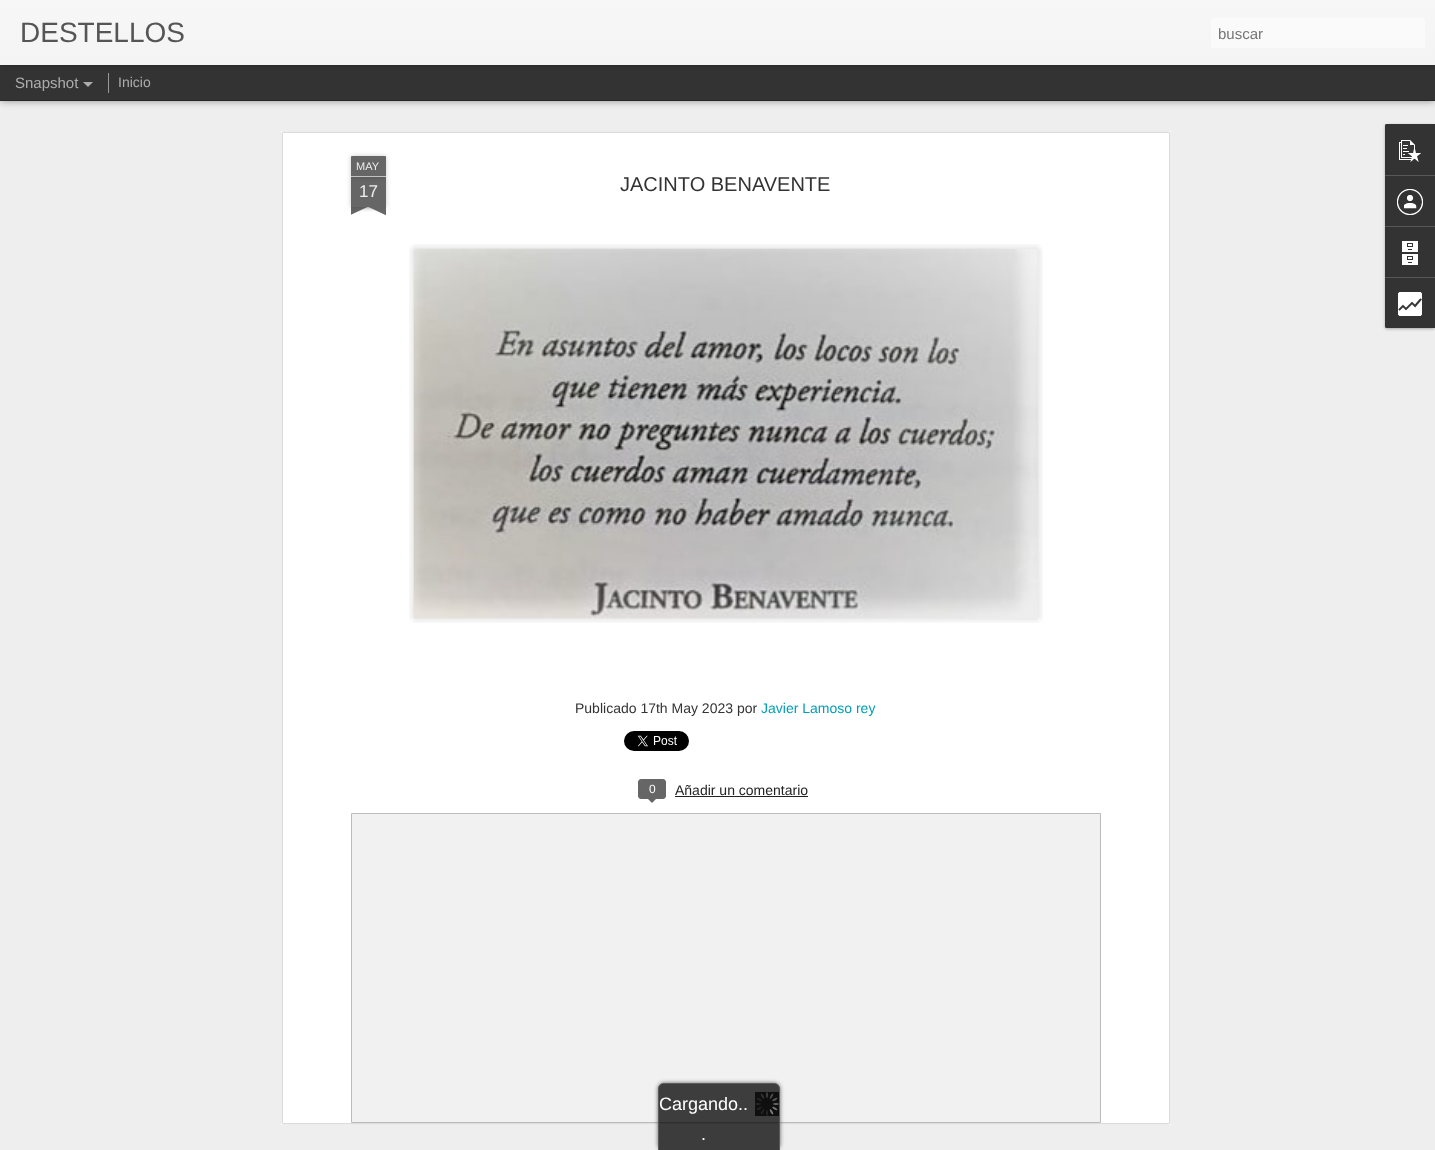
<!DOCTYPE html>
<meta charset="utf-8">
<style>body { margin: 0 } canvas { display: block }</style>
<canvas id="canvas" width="1435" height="1150"></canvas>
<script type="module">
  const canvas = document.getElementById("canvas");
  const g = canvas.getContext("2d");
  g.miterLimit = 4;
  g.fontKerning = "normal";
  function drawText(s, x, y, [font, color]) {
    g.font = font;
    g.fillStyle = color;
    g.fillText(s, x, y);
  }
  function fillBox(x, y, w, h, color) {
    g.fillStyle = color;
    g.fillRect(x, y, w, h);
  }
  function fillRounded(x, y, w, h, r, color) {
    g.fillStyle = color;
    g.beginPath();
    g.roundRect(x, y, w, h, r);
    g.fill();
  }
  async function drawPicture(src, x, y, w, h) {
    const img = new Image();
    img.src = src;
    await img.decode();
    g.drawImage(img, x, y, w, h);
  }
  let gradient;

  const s1 = ["28px Liberation Sans", "#555555"];
  const s2 = ["15px Liberation Sans", "#757575"];
  const s3 = ["15px Liberation Sans", "#ADADAD"];
  const s4 = ["14px Liberation Sans", "#ADADAD"];
  const s5 = ["11px Liberation Sans", "#EEEEEE"];
  const s6 = ["17px Liberation Sans", "#EEEEEE"];
  const s7 = ["20px Liberation Sans", "#333333"];
  const s8 = ["14px Liberation Sans", "#333333"];
  const s9 = ["14px Liberation Sans", "#009EB8"];
  const s10 = ["12px Liberation Sans", "#FFFFFF"];
  const s11 = ["14px Liberation Sans", "#222222"];
  const s12 = ["18px Liberation Sans", "#FFFFFF"];

  fillBox(0, 0, 1435, 1150, "#333333");
  fillBox(0, 101, 1435, 1049, "#EEEEEE");
  g.fillStyle = "rgba(0, 0, 0, 0.5)";
  g.filter = "blur(4px)";
  g.beginPath();
  g.rect(0, 65, 1435, 35);
  g.fill();
  g.filter = "none";
  fillBox(0, 65, 1435, 35, "#333333");
  fillBox(108, 73, 1, 20, "#999999");
  g.fillStyle = "rgba(0, 0, 0, 0.3)";
  g.filter = "blur(2.5px)";
  g.beginPath();
  g.rect(0, 0, 1435, 65);
  g.fill();
  g.filter = "none";
  gradient = g.createLinearGradient(0, 0, 0, 65);
  gradient.addColorStop(0, "#F7F7F7");
  gradient.addColorStop(1, "#F4F4F4");
  g.fillStyle = gradient;
  g.fillRect(0, 0, 1435, 65);
  drawText("DESTELLOS", 20, 42, s1);
  fillRounded(1211, 18, 214, 30, 3, "#FAFAFA");
  drawText("buscar", 1218, 39, s2);
  drawText("Snapshot", 15, 88, s3);
  g.beginPath();
  g.moveTo(83, 82);
  g.lineTo(93, 82);
  g.lineTo(88, 87);
  g.closePath();
  g.fill();
  drawText("Inicio", 118, 87, s4);
  fillBox(281, 131, 890, 994, "#FFFFFF");
  await drawPicture("pic1.png", 281, 131, 890, 994);
  g.fillStyle = "rgba(0, 0, 0, 0.2)";
  g.filter = "blur(2.5px)";
  g.beginPath();
  g.rect(351, 177, 35, 30);
  g.fill();
  g.filter = "none";
  fillBox(351, 177, 35, 30, "#666666");
  g.fillStyle = "rgba(0, 0, 0, 0.2)";
  g.filter = "blur(2.5px)";
  g.beginPath();
  g.roundRect(351, 156, 35, 21, 1);
  g.fill();
  g.filter = "none";
  g.fillStyle = "#666666";
  g.beginPath();
  g.roundRect(351, 156, 35, 21, [1, 1, 0, 0]);
  g.fill();
  fillBox(351, 176, 35, 1, "#C2C2C2");
  drawText("MAY", 356, 170, s5);
  drawText("17", 359, 197, s6);
  g.save();
  g.beginPath();
  g.rect(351, 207, 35, 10);
  g.clip();
  g.fillStyle = "rgba(0, 0, 0, 0.2)";
  g.filter = "blur(2.5px)";
  g.beginPath();
  g.rect(342, 197, 50, 10);
  g.fill();
  g.filter = "none";
  g.restore();
  g.save();
  g.beginPath();
  g.rect(351, 207, 35, 10);
  g.clip();
  g.fillStyle = "#666666";
  g.beginPath();
  g.moveTo(342, 208);
  g.lineTo(387, 187);
  g.lineTo(391, 196);
  g.lineTo(346, 217);
  g.closePath();
  g.fill();
  g.restore();
  g.save();
  g.beginPath();
  g.rect(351, 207, 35, 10);
  g.clip();
  g.fillStyle = "rgba(0, 0, 0, 0.2)";
  g.filter = "blur(2.5px)";
  g.beginPath();
  g.rect(345, 197, 50, 10);
  g.fill();
  g.filter = "none";
  g.restore();
  g.save();
  g.beginPath();
  g.rect(351, 207, 35, 10);
  g.clip();
  g.fillStyle = "#666666";
  g.beginPath();
  g.moveTo(349, 187);
  g.lineTo(394, 208);
  g.lineTo(390, 217);
  g.lineTo(345, 196);
  g.closePath();
  g.fill();
  g.restore();
  drawText("JACINTO BENAVENTE", 620, 191, s7);
  await drawPicture("pic2.png", 409, 244, 634, 379);
  await drawPicture("pic3.png", 413, 248, 589, 371);
  drawText("Publicado 17th May 2023 por", 575, 713, s8);
  drawText("Javier Lamoso rey", 761, 713, s9);
  await drawPicture("pic4.png", 624, 731, 65, 20);
  g.fillStyle = "#666666";
  g.beginPath();
  g.roundRect(638.5, 779.5, 27, 19, 2.5);
  g.fill();
  g.strokeStyle = "#666666";
  g.stroke();
  drawText("0", 649, 793, s10);
  g.fillStyle = "#666666";
  g.beginPath();
  g.moveTo(647, 798);
  g.lineTo(657, 798);
  g.lineTo(652, 803);
  g.closePath();
  g.fill();
  drawText("Añadir un comentario", 675, 795, s11);
  fillBox(675, 796, 133, 1, "#222222");
  g.fillStyle = "#F1F1F1";
  g.beginPath();
  g.rect(351.5, 813.5, 749, 309);
  g.fill();
  g.strokeStyle = "#BBBBBB";
  g.stroke();
  g.fillStyle = "rgba(0, 0, 0, 0.3)";
  g.filter = "blur(1.5px)";
  g.beginPath();
  g.roundRect(1385, 125, 50, 204, 2);
  g.fill();
  g.filter = "none";
  g.fillStyle = "#333333";
  g.beginPath();
  g.roundRect(1385, 124, 50, 204, [2, 0, 0, 2]);
  g.fill();
  g.beginPath();
  g.roundRect(1385, 124, 50, 51, [2, 0, 0, 0]);
  g.fill();
  await drawPicture("pic5.png", 1399, 140, 22, 22);
  fillBox(1385, 175, 50, 1, "#585858");
  await drawPicture("pic6.png", 1397, 189, 26, 26);
  fillBox(1385, 226, 50, 1, "#585858");
  await drawPicture("pic7.png", 1402, 241, 16, 24);
  g.fillStyle = "#333333";
  g.beginPath();
  g.roundRect(1385, 277, 50, 51, [0, 0, 0, 2]);
  g.fill();
  fillBox(1385, 277, 50, 1, "#585858");
  await drawPicture("pic8.png", 1398, 292, 24, 24);
  g.save();
  g.beginPath();
  g.moveTo(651, 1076);
  g.lineTo(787, 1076);
  g.lineTo(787, 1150);
  g.lineTo(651, 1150);
  g.closePath();
  g.moveTo(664, 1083);
  g.lineTo(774, 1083);
  g.bezierCurveTo(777.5, 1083, 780, 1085.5, 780, 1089);
  g.lineTo(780, 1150);
  g.lineTo(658, 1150);
  g.lineTo(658, 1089);
  g.bezierCurveTo(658, 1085.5, 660.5, 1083, 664, 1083);
  g.closePath();
  g.clip("evenodd");
  g.fillStyle = "rgba(51, 51, 51, 0.75)";
  g.filter = "blur(2px)";
  g.beginPath();
  g.roundRect(658, 1083, 122, 67, 6);
  g.fill();
  g.filter = "none";
  g.restore();
  g.fillStyle = "rgba(0, 0, 0, 0.75)";
  g.beginPath();
  g.roundRect(658, 1083, 122, 67, [6, 6, 0, 0]);
  g.fill();
  g.fillStyle = "rgba(102, 102, 102, 0.75)";
  g.beginPath();
  g.moveTo(664, 1083);
  g.lineTo(774, 1083);
  g.bezierCurveTo(777, 1083, 780, 1086, 780, 1089);
  g.lineTo(780, 1150);
  g.lineTo(658, 1150);
  g.lineTo(658, 1089);
  g.bezierCurveTo(658, 1086, 661, 1083, 664, 1083);
  g.closePath();
  g.moveTo(664, 1084);
  g.lineTo(774, 1084);
  g.bezierCurveTo(777, 1084, 779, 1086, 779, 1089);
  g.lineTo(779, 1150);
  g.lineTo(659, 1150);
  g.lineTo(659, 1089);
  g.bezierCurveTo(659, 1086, 661, 1084, 664, 1084);
  g.closePath();
  g.fill("evenodd");
  await drawPicture("pic9.png", 755, 1092, 24, 24);
  drawText("Cargando..", 659, 1110, s12);
  drawText(".", 701, 1140, s12);
</script>
